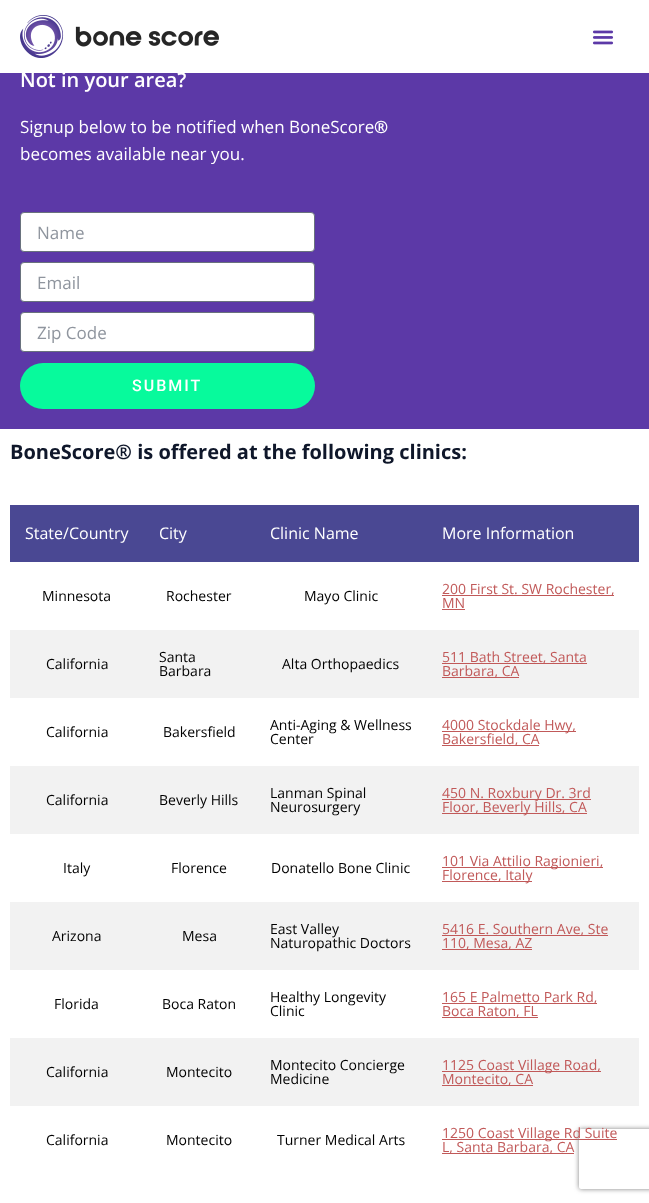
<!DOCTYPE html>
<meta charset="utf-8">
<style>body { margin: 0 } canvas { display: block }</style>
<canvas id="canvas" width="649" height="1203"></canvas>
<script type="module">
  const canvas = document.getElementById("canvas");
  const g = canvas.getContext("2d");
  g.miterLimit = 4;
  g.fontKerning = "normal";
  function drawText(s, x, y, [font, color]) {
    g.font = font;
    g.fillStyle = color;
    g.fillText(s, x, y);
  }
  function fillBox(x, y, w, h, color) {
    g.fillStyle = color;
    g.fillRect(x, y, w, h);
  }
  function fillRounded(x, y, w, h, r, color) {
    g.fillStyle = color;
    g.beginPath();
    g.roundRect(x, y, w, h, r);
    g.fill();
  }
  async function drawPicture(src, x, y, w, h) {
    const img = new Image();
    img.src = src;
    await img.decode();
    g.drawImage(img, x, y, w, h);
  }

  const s1 = ["600 20px Open Sans", "#FFFFFF"];
  const s2 = ["17px Open Sans", "#FFFFFF"];
  const s3 = ["bold 17px Open Sans", "#FFFFFF"];
  const s4 = ["17px Open Sans", "#8F959E"];
  const s5 = ["500 16px Roboto", "#FFFFFF"];
  const s6 = ["bold 20px Open Sans", "#0F172A"];
  const s7 = ["16px Open Sans", "#FFFFFF"];
  const s8 = ["14px Open Sans", "#000000"];
  const s9 = ["14px Open Sans", "#C15959"];

  fillBox(0, 0, 649, 1203, "#FFFFFF");
  await drawPicture("pic1.png", 20, 15, 199, 43);
  await drawPicture("pic2.png", 592, 30, 22, 15);
  fillBox(0, 73, 649, 356, "#5C39A7");
  drawText("Not in your area?", 20, 87, s1);
  drawText("Signup below to be notified when BoneScore", 20, 133, s2);
  drawText("®", 374, 133, s3);
  drawText("becomes available near you.", 20, 160, s2);
  g.beginPath();
  g.roundRect(20.5, 212.5, 294, 39, 3.5);
  g.fill();
  g.strokeStyle = "#69727D";
  g.stroke();
  drawText("Name", 37, 239, s4);
  g.fillStyle = "#FFFFFF";
  g.beginPath();
  g.roundRect(20.5, 262.5, 294, 39, 3.5);
  g.fill();
  g.stroke();
  drawText("Email", 37, 289, s4);
  g.fillStyle = "#FFFFFF";
  g.beginPath();
  g.roundRect(20.5, 312.5, 294, 39, 3.5);
  g.fill();
  g.stroke();
  drawText("Zip Code", 37, 339, s4);
  fillRounded(20, 363, 295, 46, 23, "#07FA9C");
  g.letterSpacing = "2px";
  drawText("SUBMIT", 132, 391, s5);
  fillBox(442, 1139, 175, 1, "#C15959");
  fillBox(442, 1153, 132, 1, "#C15959");
  g.save();
  g.beginPath();
  g.moveTo(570, 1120);
  g.lineTo(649, 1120);
  g.lineTo(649, 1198);
  g.lineTo(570, 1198);
  g.closePath();
  g.moveTo(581, 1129);
  g.lineTo(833, 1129);
  g.bezierCurveTo(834, 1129, 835, 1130, 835, 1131);
  g.lineTo(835, 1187);
  g.bezierCurveTo(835, 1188, 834, 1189, 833, 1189);
  g.lineTo(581, 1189);
  g.bezierCurveTo(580, 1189, 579, 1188, 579, 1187);
  g.lineTo(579, 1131);
  g.bezierCurveTo(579, 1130, 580, 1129, 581, 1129);
  g.closePath();
  g.clip("evenodd");
  g.fillStyle = "#808080";
  g.filter = "blur(2.5px)";
  g.beginPath();
  g.roundRect(579, 1129, 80, 60, 2);
  g.fill();
  g.filter = "none";
  g.restore();
  g.letterSpacing = "0px";
  drawText("BoneScore® is offered at the following clinics:", 10, 459, s6);
  fillBox(10, 505, 629, 57, "#4A4893");
  drawText("State/Country", 25, 539, s7);
  drawText("City", 159, 539, s7);
  drawText("Clinic Name", 270, 539, s7);
  drawText("More Information", 442, 539, s7);
  drawText("Minnesota", 42, 601, s8);
  drawText("Rochester", 166, 601, s8);
  drawText("Mayo Clinic", 304, 601, s8);
  fillBox(442, 595, 172, 1, "#C15959");
  drawText("200 First St. SW Rochester,", 442, 594, s9);
  drawText("MN", 442, 608, s9);
  fillBox(442, 609, 23, 1, "#C15959");
  fillBox(10, 630, 629, 68, "#F2F2F2");
  drawText("California", 46, 669, s8);
  drawText("Santa", 159, 662, s8);
  drawText("Barbara", 159, 676, s8);
  drawText("Alta Orthopaedics", 282, 669, s8);
  fillBox(442, 663, 145, 1, "#C15959");
  drawText("511 Bath Street, Santa", 442, 662, s9);
  fillBox(442, 677, 77, 1, "#C15959");
  drawText("Barbara, CA", 442, 676, s9);
  drawText("California", 46, 737, s8);
  drawText("Bakersfield", 163, 737, s8);
  drawText("Anti-Aging & Wellness", 270, 730, s8);
  drawText("Center", 270, 744, s8);
  fillBox(442, 731, 134, 1, "#C15959");
  drawText("4000 Stockdale Hwy,", 442, 730, s9);
  fillBox(442, 745, 97, 1, "#C15959");
  drawText("Bakersfield, CA", 442, 744, s9);
  fillBox(10, 766, 629, 68, "#F2F2F2");
  drawText("California", 46, 805, s8);
  drawText("Beverly Hills", 159, 805, s8);
  drawText("Lanman Spinal", 270, 798, s8);
  drawText("Neurosurgery", 270, 812, s8);
  fillBox(442, 799, 149, 1, "#C15959");
  drawText("450 N. Roxbury Dr. 3rd", 442, 798, s9);
  fillBox(442, 813, 145, 1, "#C15959");
  drawText("Floor, Beverly Hills, CA", 442, 812, s9);
  drawText("Italy", 63, 873, s8);
  drawText("Florence", 171, 873, s8);
  drawText("Donatello Bone Clinic", 271, 873, s8);
  fillBox(442, 867, 161, 1, "#C15959");
  drawText("101 Via Attilio Ragionieri,", 442, 866, s9);
  fillBox(442, 881, 90, 1, "#C15959");
  drawText("Florence, Italy", 442, 880, s9);
  fillBox(10, 902, 629, 68, "#F2F2F2");
  drawText("Arizona", 52, 941, s8);
  drawText("Mesa", 182, 941, s8);
  drawText("East Valley", 270, 934, s8);
  drawText("Naturopathic Doctors", 270, 948, s8);
  fillBox(442, 935, 166, 1, "#C15959");
  drawText("5416 E. Southern Ave, Ste", 442, 934, s9);
  fillBox(442, 949, 90, 1, "#C15959");
  drawText("110, Mesa, AZ", 442, 948, s9);
  drawText("Florida", 54, 1009, s8);
  drawText("Boca Raton", 162, 1009, s8);
  drawText("Healthy Longevity", 270, 1002, s8);
  drawText("Clinic", 270, 1016, s8);
  fillBox(442, 1003, 155, 1, "#C15959");
  drawText("165 E Palmetto Park Rd,", 442, 1002, s9);
  fillBox(442, 1017, 96, 1, "#C15959");
  drawText("Boca Raton, FL", 442, 1016, s9);
  fillBox(10, 1038, 629, 68, "#F2F2F2");
  drawText("California", 46, 1077, s8);
  drawText("Montecito", 166, 1077, s8);
  drawText("Montecito Concierge", 270, 1070, s8);
  drawText("Medicine", 270, 1084, s8);
  fillBox(442, 1071, 159, 1, "#C15959");
  drawText("1125 Coast Village Road,", 442, 1070, s9);
  fillBox(442, 1085, 91, 1, "#C15959");
  drawText("Montecito, CA", 442, 1084, s9);
  drawText("California", 46, 1145, s8);
  drawText("Montecito", 166, 1145, s8);
  drawText("Turner Medical Arts", 277, 1145, s8);
  drawText("1250 Coast Village Rd Suite", 442, 1138, s9);
  drawText("L, Santa Barbara, CA", 442, 1152, s9);
</script>
